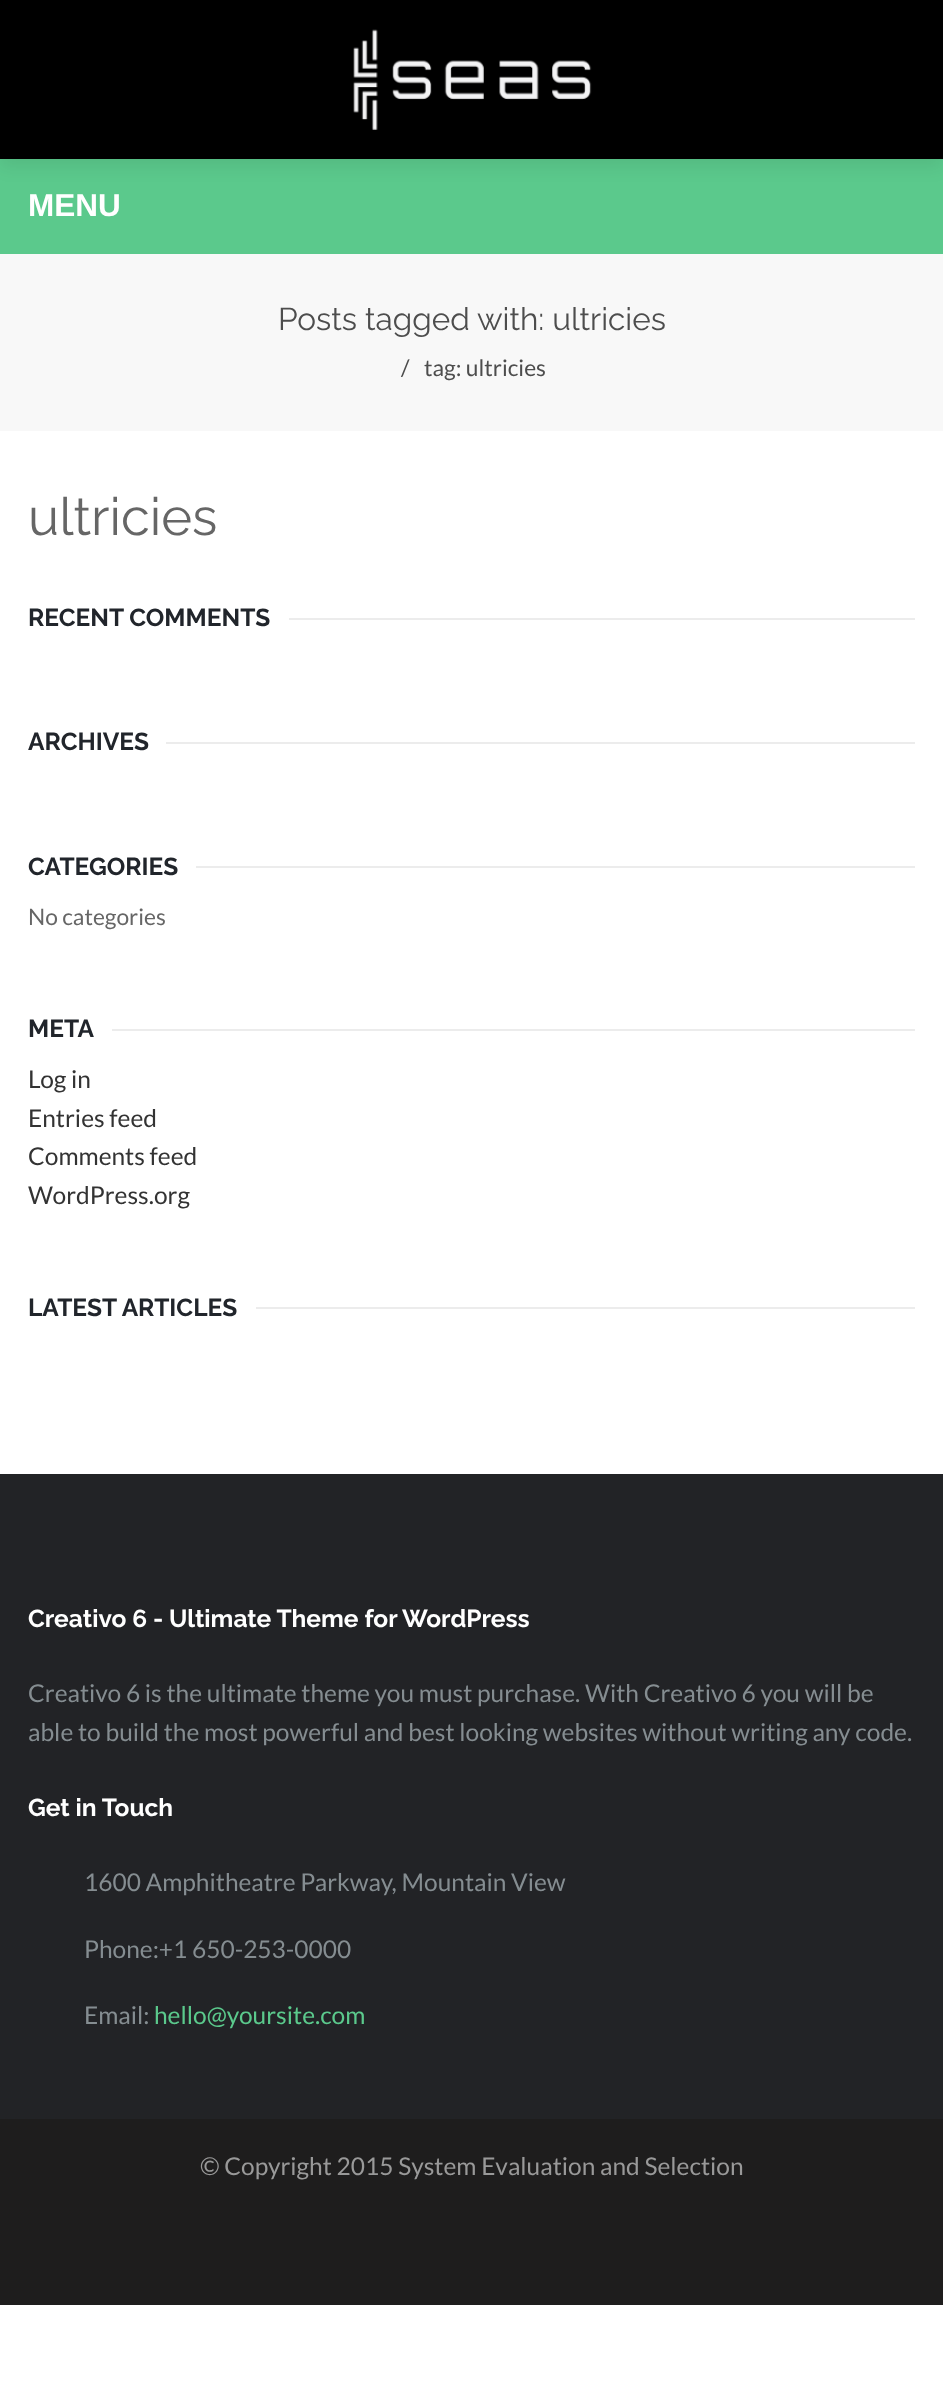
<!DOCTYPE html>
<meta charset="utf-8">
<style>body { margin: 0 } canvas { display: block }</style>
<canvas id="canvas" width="943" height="2401"></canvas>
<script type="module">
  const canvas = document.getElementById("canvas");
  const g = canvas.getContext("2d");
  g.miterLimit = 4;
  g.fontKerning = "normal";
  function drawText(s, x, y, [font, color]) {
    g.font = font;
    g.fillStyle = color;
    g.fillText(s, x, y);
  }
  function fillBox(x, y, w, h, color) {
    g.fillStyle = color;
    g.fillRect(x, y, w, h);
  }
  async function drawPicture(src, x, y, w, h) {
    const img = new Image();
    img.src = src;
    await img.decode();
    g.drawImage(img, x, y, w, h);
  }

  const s1 = ["bold 31.5px Liberation Sans", "#FFFFFF"];
  const s2 = ["31.5px Raleway", "#4D4D4D"];
  const s3 = ["22.75px Lato", "#4D4D4D"];
  const s4 = ["52.5px Raleway", "#666666"];
  const s5 = ["bold 24.5px Raleway", "#21252B"];
  const s6 = ["22.75px Lato", "#666666"];
  const s7 = ["24.5px Lato", "#333333"];
  const s8 = ["bold 24.5px Raleway", "#FFFFFF"];
  const s9 = ["24.5px Lato", "#858D91"];
  const s10 = ["24.5px Lato", "#5BC98C"];
  const s11 = ["24.5px Lato", "#999999"];

  fillBox(0, 0, 943, 2401, "#FFFFFF");
  fillBox(0, 159, 943, 95, "#5BC98C");
  g.fillStyle = "rgba(0, 0, 0, 0.08)";
  g.filter = "blur(9px)";
  g.beginPath();
  g.rect(0, 7, 943, 159);
  g.fill();
  g.filter = "none";
  fillBox(0, 0, 943, 159, "#000000");
  await drawPicture("pic1.png", 353, 29, 239, 101);
  drawText("MENU", 28, 216, s1);
  fillBox(0, 254, 943, 177, "#F8F8F8");
  drawText("Posts tagged with: ultricies", 278, 330, s2);
  drawText("/", 401, 376, s3);
  drawText("tag: ultricies", 424, 376, s3);
  drawText("ultricies", 28, 535, s4);
  drawText("RECENT COMMENTS", 28, 626, s5);
  fillBox(289, 618, 626, 2, "#ECECEC");
  drawText("ARCHIVES", 28, 750, s5);
  fillBox(166, 742, 749, 2, "#ECECEC");
  drawText("CATEGORIES", 28, 875, s5);
  fillBox(196, 866, 719, 2, "#ECECEC");
  drawText("No categories", 28, 925, s6);
  drawText("META", 28, 1037, s5);
  fillBox(112, 1029, 803, 2, "#ECECEC");
  drawText("Log in", 28, 1088, s7);
  drawText("Entries feed", 28, 1127, s7);
  drawText("Comments feed", 28, 1165, s7);
  drawText("WordPress.org", 28, 1204, s7);
  drawText("LATEST ARTICLES", 28, 1316, s5);
  fillBox(256, 1307, 659, 2, "#ECECEC");
  fillBox(0, 2119, 943, 186, "#1E1D1D");
  fillBox(0, 1474, 943, 645, "#222326");
  drawText("Creativo 6 - Ultimate Theme for WordPress", 28, 1627, s8);
  drawText("Creativo 6 is the ultimate theme you must purchase. With Creativo 6 you will be", 28, 1702, s9);
  drawText("able to build the most powerful and best looking websites without writing any code.", 28, 1741, s9);
  drawText("Get in Touch", 28, 1816, s8);
  drawText("1600 Amphitheatre Parkway, Mountain View", 84, 1891, s9);
  drawText("Phone:+1 650-253-0000", 84, 1958, s9);
  drawText("Email:", 84, 2024, s9);
  drawText("hello@yoursite.com", 154, 2024, s10);
  drawText("© Copyright 2015 System Evaluation and Selection", 200, 2175, s11);
</script>
